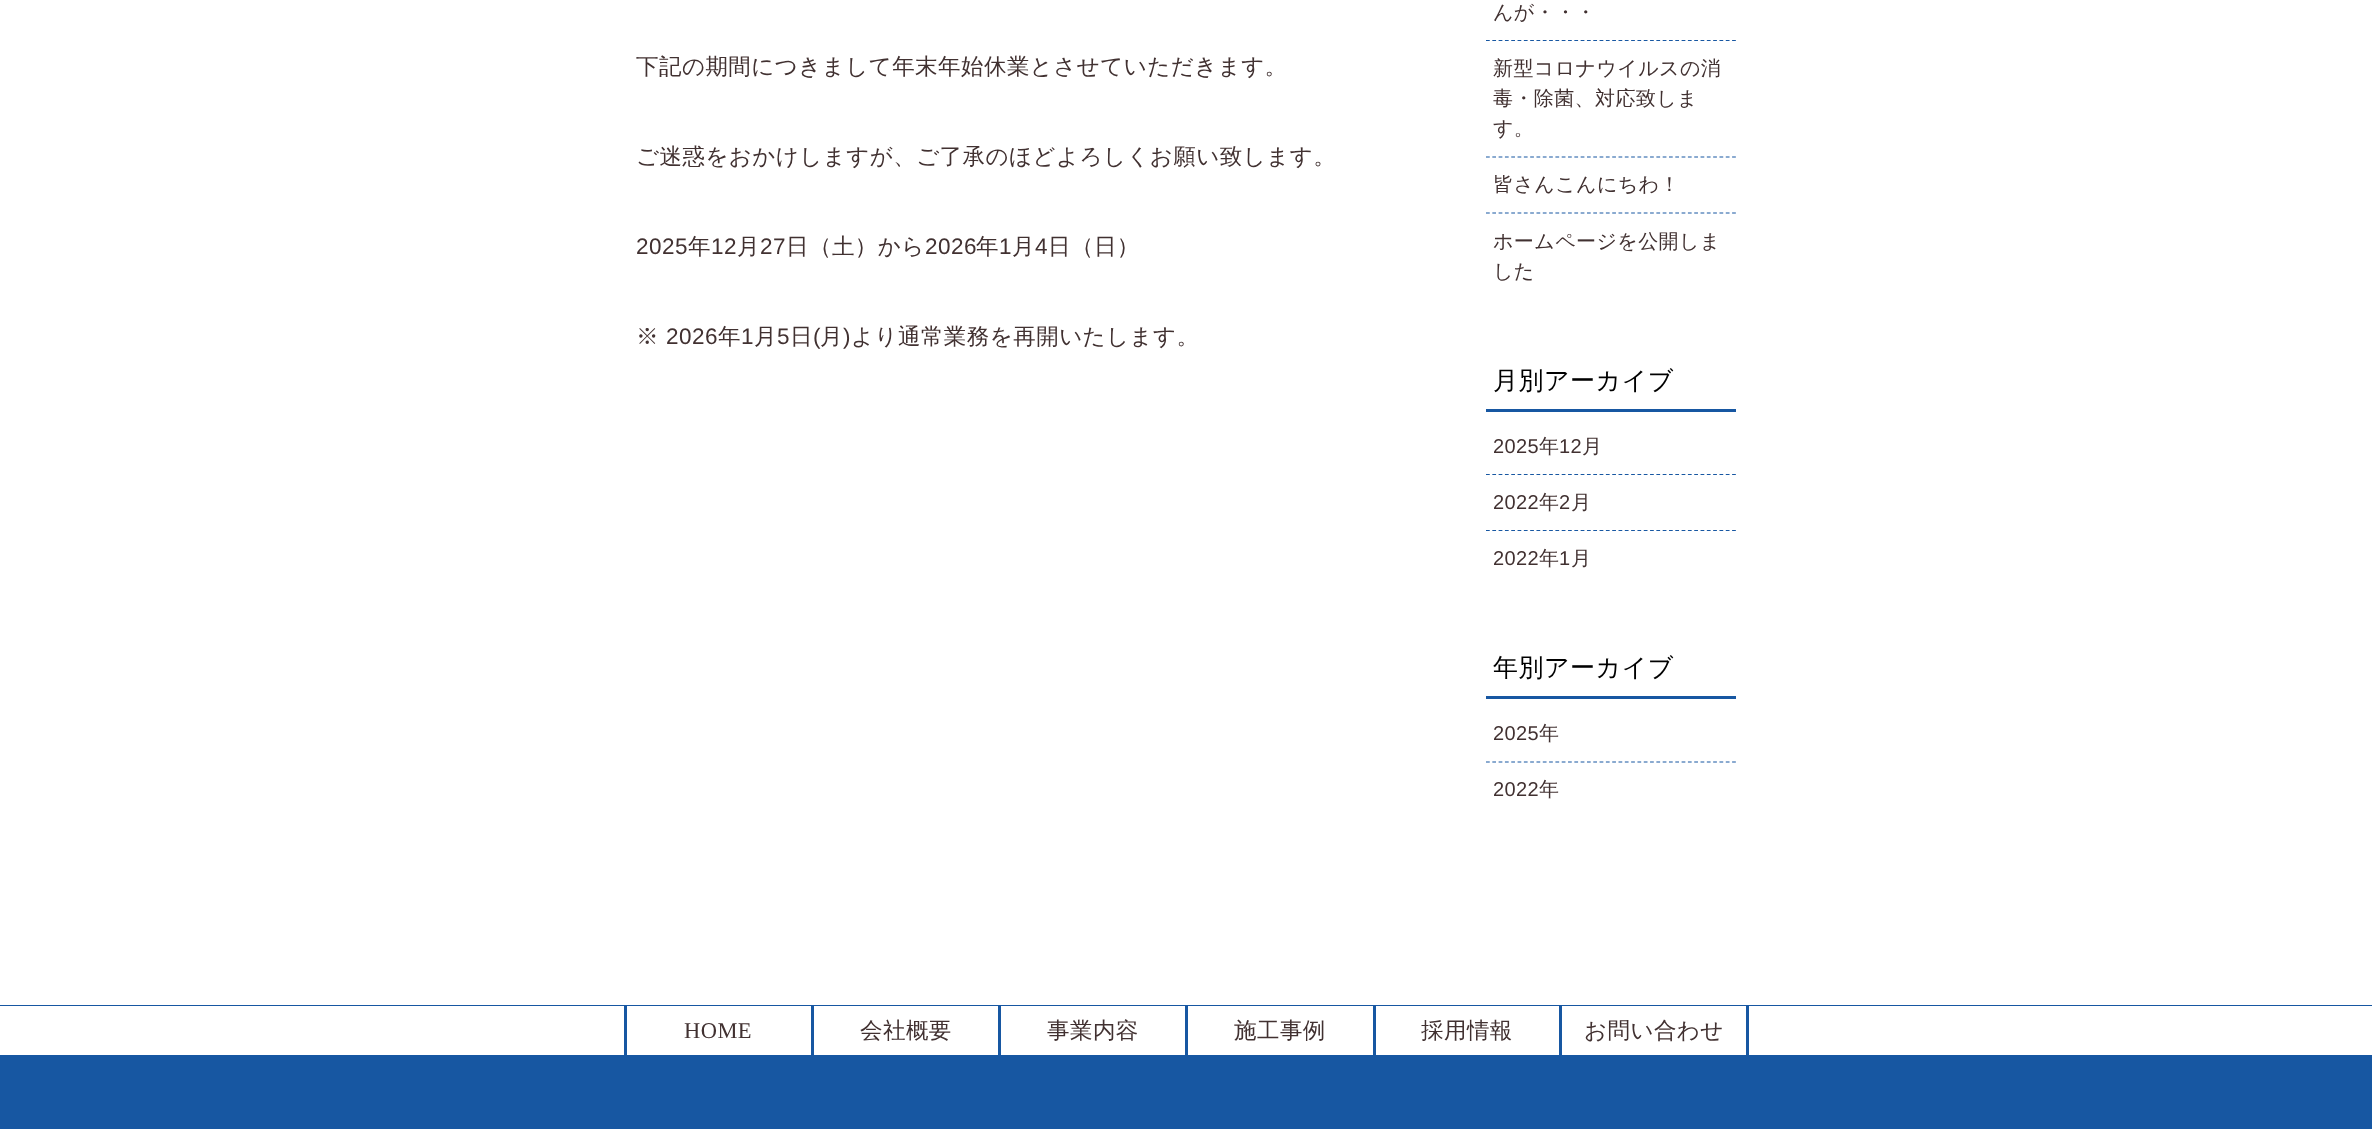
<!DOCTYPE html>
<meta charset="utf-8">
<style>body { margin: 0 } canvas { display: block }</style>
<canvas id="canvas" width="2372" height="1129"></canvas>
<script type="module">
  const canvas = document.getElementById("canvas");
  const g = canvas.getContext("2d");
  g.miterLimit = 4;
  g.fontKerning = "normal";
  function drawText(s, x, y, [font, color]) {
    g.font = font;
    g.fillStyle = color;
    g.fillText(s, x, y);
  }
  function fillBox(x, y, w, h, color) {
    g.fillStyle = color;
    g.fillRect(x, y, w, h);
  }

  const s1 = ["500 22.5px WenQuanYi Zen Hei", "#413131"];
  const s2 = ["22.5px Liberation Sans", "#413131"];
  const s3 = ["500 20px WenQuanYi Zen Hei", "#413131"];
  const s4 = ["500 25px WenQuanYi Zen Hei", "#000000"];
  const s5 = ["20px Liberation Sans", "#413131"];
  const s6 = ["22.5px Liberation Serif", "#413131"];

  fillBox(0, 0, 2372, 1129, "#FFFFFF");
  g.letterSpacing = "0.45px";
  drawText("下記の期間につきまして年末年始休業とさせていただきます。", 636, 74, s1);
  drawText("ご迷惑をおかけしますが、ご了承のほどよろしくお願い致します。", 636, 164, s1);
  drawText("2025", 636, 254, s2);
  drawText("年", 688, 254, s1);
  drawText("12", 711, 254, s2);
  drawText("月", 737, 254, s1);
  drawText("27", 760, 254, s2);
  drawText("日（土）から", 786, 254, s1);
  drawText("2026", 925, 254, s2);
  drawText("年", 976, 254, s1);
  drawText("1", 999, 254, s2);
  drawText("月", 1012, 254, s1);
  drawText("4", 1035, 254, s2);
  drawText("日（日）", 1048, 254, s1);
  drawText("※", 636, 344, s1);
  drawText("2026", 666, 344, s2);
  drawText("年", 718, 344, s1);
  drawText("1", 741, 344, s2);
  drawText("月", 754, 344, s1);
  drawText("5", 777, 344, s2);
  drawText("日", 790, 344, s1);
  drawText("(", 813, 344, s2);
  drawText("月", 820, 344, s1);
  drawText(")", 843, 344, s2);
  drawText("より通常業務を再開いたします。", 851, 344, s1);
  g.beginPath();
  g.moveTo(1486, 40.5);
  g.lineTo(1736, 40.5);
  g.strokeStyle = "#1757A2";
  g.lineWidth = 1.2;
  g.setLineDash([3.75, 2.56]);
  g.stroke();
  g.letterSpacing = "0.4px";
  drawText("んが・・・", 1493, 19, s3);
  g.beginPath();
  g.moveTo(1486, 157);
  g.lineTo(1736, 157);
  g.stroke();
  drawText("新型コロナウイルスの消", 1493, 75, s3);
  drawText("毒・除菌、対応致しま", 1493, 105, s3);
  drawText("す。", 1493, 135, s3);
  g.beginPath();
  g.moveTo(1486, 213);
  g.lineTo(1736, 213);
  g.stroke();
  drawText("皆さんこんにちわ！", 1493, 191, s3);
  drawText("ホームページを公開しま", 1493, 248, s3);
  drawText("した", 1493, 278, s3);
  fillBox(1486, 409, 250, 3, "#1757A2");
  g.letterSpacing = "0.5px";
  drawText("月別アーカイブ", 1493, 389, s4);
  g.beginPath();
  g.moveTo(1486, 474.5);
  g.lineTo(1736, 474.5);
  g.stroke();
  g.letterSpacing = "0.4px";
  drawText("2025", 1493, 453, s5);
  drawText("年", 1539, 453, s3);
  drawText("12", 1559, 453, s5);
  drawText("月", 1582, 453, s3);
  g.beginPath();
  g.moveTo(1486, 530.5);
  g.lineTo(1736, 530.5);
  g.stroke();
  drawText("2022", 1493, 509, s5);
  drawText("年", 1539, 509, s3);
  drawText("2", 1559, 509, s5);
  drawText("月", 1571, 509, s3);
  drawText("2022", 1493, 565, s5);
  drawText("年", 1539, 565, s3);
  drawText("1", 1559, 565, s5);
  drawText("月", 1571, 565, s3);
  fillBox(1486, 696, 250, 3, "#1757A2");
  g.letterSpacing = "0.5px";
  drawText("年別アーカイブ", 1493, 676, s4);
  g.beginPath();
  g.moveTo(1486, 762);
  g.lineTo(1736, 762);
  g.stroke();
  g.letterSpacing = "0.4px";
  drawText("2025", 1493, 740, s5);
  drawText("年", 1539, 740, s3);
  drawText("2022", 1493, 796, s5);
  drawText("年", 1539, 796, s3);
  fillBox(0, 1005, 2372, 124, "#1757A2");
  fillBox(0, 1006, 2372, 49, "#FFFFFF");
  fillBox(624, 1006, 3, 49, "#1757A2");
  fillBox(811, 1006, 3, 49, "#1757A2");
  g.letterSpacing = "0.45px";
  drawText("HOME", 684, 1038, s6);
  fillBox(998, 1006, 3, 49, "#1757A2");
  drawText("会社概要", 860, 1038, s1);
  fillBox(1185, 1006, 3, 49, "#1757A2");
  drawText("事業内容", 1047, 1038, s1);
  fillBox(1373, 1006, 3, 49, "#1757A2");
  drawText("施工事例", 1234, 1038, s1);
  fillBox(1559, 1006, 3, 49, "#1757A2");
  drawText("採用情報", 1421, 1038, s1);
  fillBox(1746, 1006, 3, 49, "#1757A2");
  drawText("お問い合わせ", 1584, 1038, s1);
</script>
